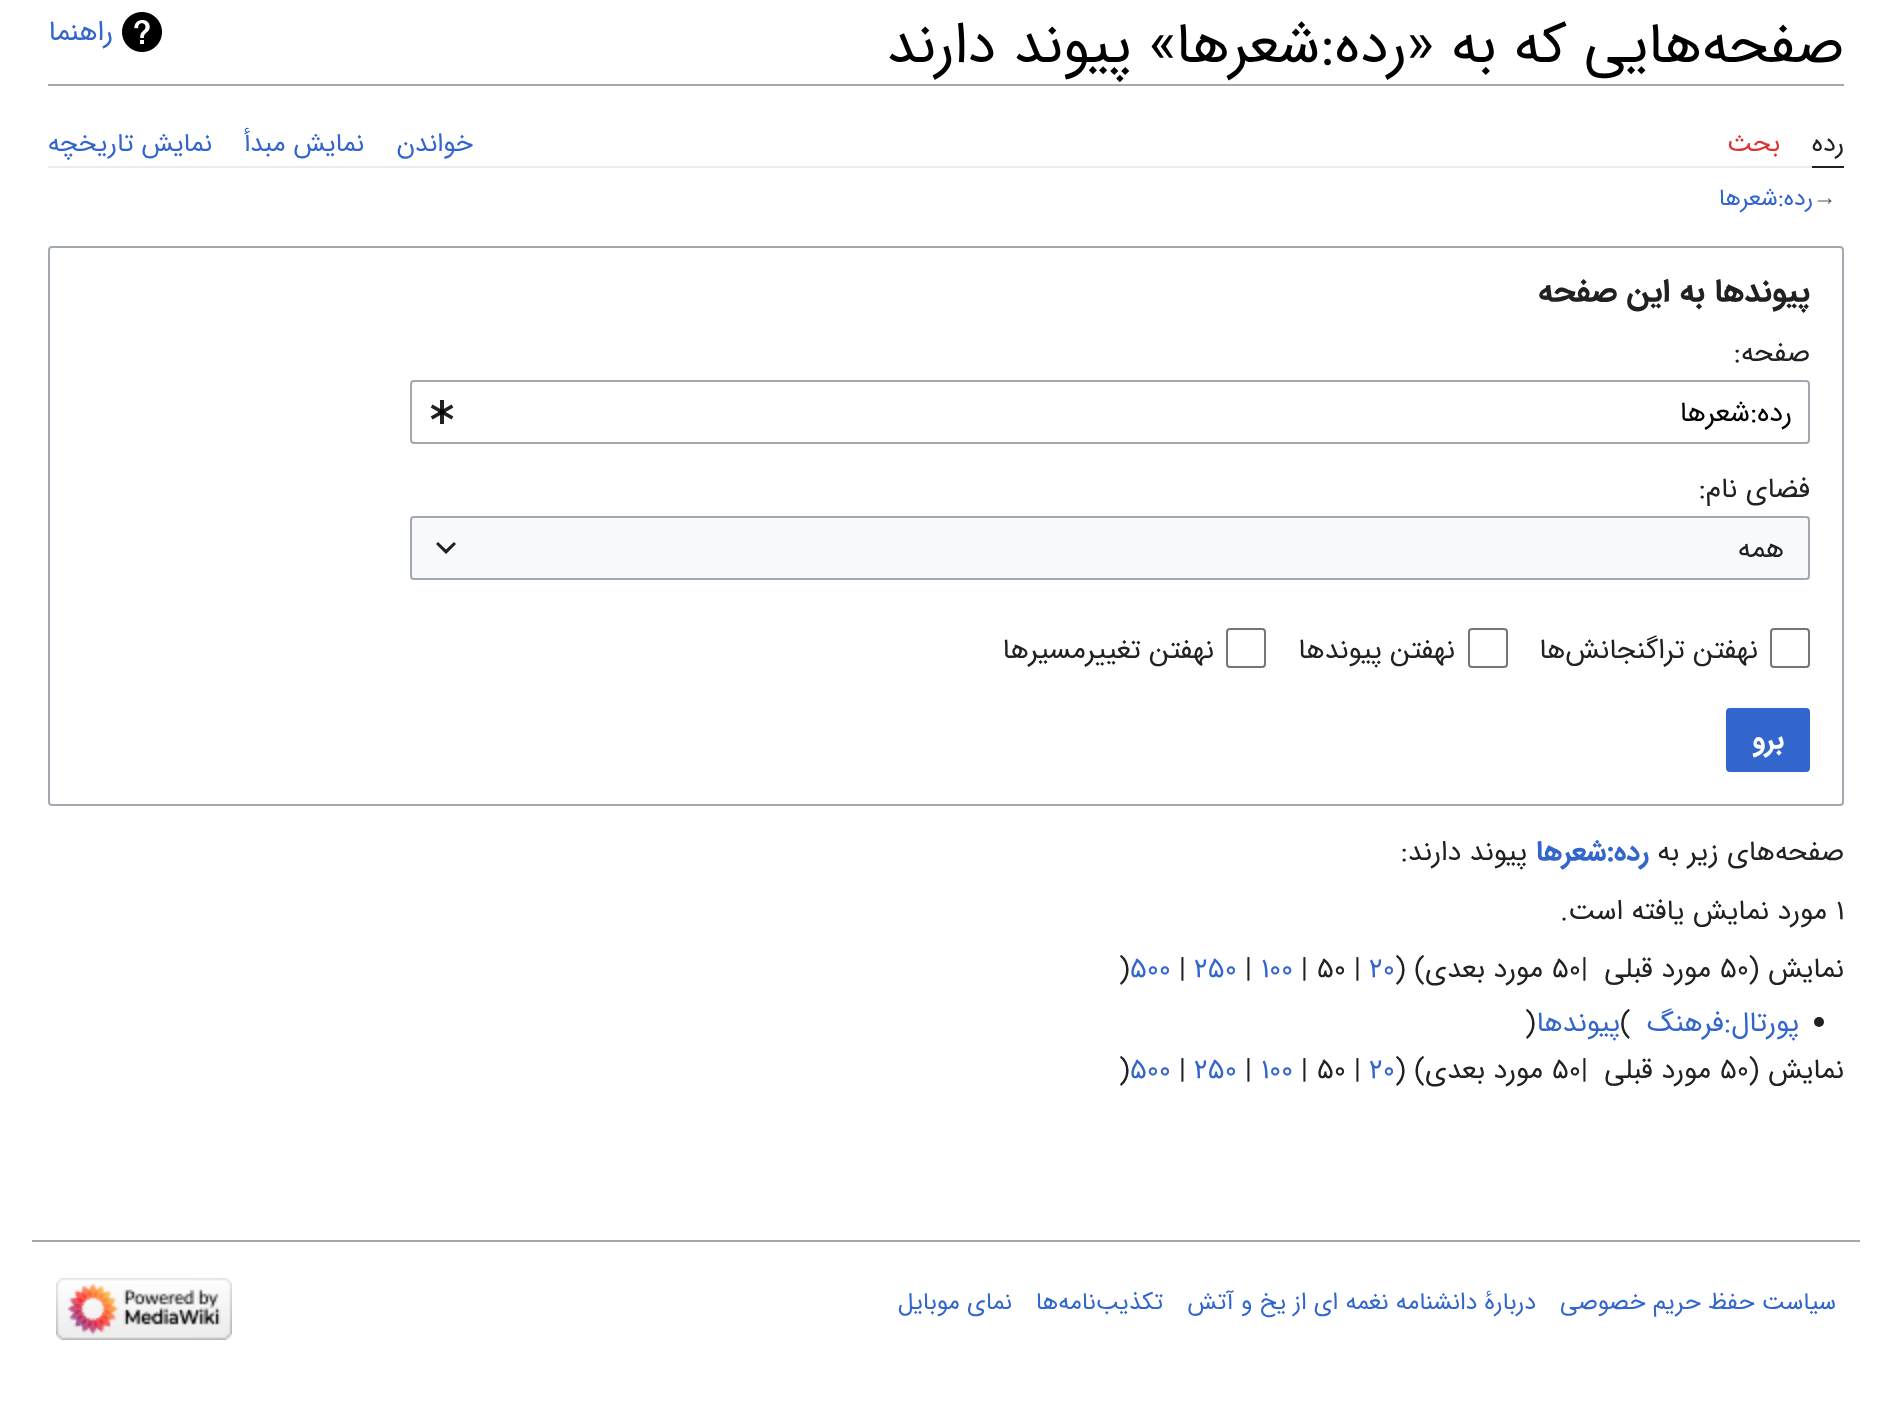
<!DOCTYPE html>
<meta charset="utf-8">
<style>body { margin: 0 } canvas { display: block }</style>
<canvas id="canvas" width="1892" height="1411"></canvas>
<script type="module">
  const canvas = document.getElementById("canvas");
  const g = canvas.getContext("2d");
  g.miterLimit = 4;
  g.fontKerning = "normal";
  function drawText(s, x, y, [font, color]) {
    g.font = font;
    g.fillStyle = color;
    g.fillText(s, x, y);
  }
  function fillBox(x, y, w, h, color) {
    g.fillStyle = color;
    g.fillRect(x, y, w, h);
  }
  async function drawPicture(src, x, y, w, h) {
    const img = new Image();
    img.src = src;
    await img.decode();
    g.drawImage(img, x, y, w, h);
  }

  const s1 = ["57.6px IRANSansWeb", "#000000"];
  const s2 = ["28px IRANSansWeb", "#3366CC"];
  const s3 = ["26px IRANSansWeb", "#202122"];
  const s4 = ["26px IRANSansWeb", "#DD3333"];
  const s5 = ["26px IRANSansWeb", "#3366CC"];
  const s6 = ["23.5px Liberation Serif", "#54595D"];
  const s7 = ["23.5px IRANSansWeb", "#3366CC"];
  const s8 = ["bold 32px IRANSansWeb", "#202122"];
  const s9 = ["28px IRANSansWeb", "#202122"];
  const s10 = ["28px IRANSansWeb", "#000000"];
  const s11 = ["bold 28px IRANSansWeb", "#FFFFFF"];
  const s12 = ["bold 28px IRANSansWeb", "#3366CC"];
  const s13 = ["24px IRANSansWeb", "#3366CC"];

  fillBox(0, 0, 1892, 1411, "#FFFFFF");
  fillBox(48, 84, 1796, 2, "#A2A9B1");
  g.direction = "rtl";
  drawText("صفحه‌هایی که به «رده:شعرها» پیوند دارند", 1844, 62, s1);
  await drawPicture("pic1.png", 122, 12, 40, 40);
  drawText("راهنما", 113, 40, s2);
  fillBox(48, 166, 1764, 2, "#EAECF0");
  fillBox(1812, 166, 32, 2, "#202122");
  drawText("رده", 1844, 151, s3);
  drawText("بحث", 1780, 151, s4);
  drawText("خواندن", 473, 151, s5);
  drawText("نمایش مبدأ", 364, 151, s5);
  drawText("نمایش تاریخچه", 212, 151, s5);
  g.direction = "ltr";
  drawText("→", 1813, 205, s6);
  g.direction = "rtl";
  drawText("رده:شعرها", 1813, 205, s7);
  g.beginPath();
  g.roundRect(49, 247, 1794, 558, 3);
  g.strokeStyle = "#A2A9B1";
  g.lineWidth = 2;
  g.stroke();
  drawText("پیوندها به این صفحه", 1810, 301, s8);
  drawText("صفحه:", 1810, 361, s9);
  g.beginPath();
  g.roundRect(411, 381, 1398, 62, 3);
  g.stroke();
  drawText("رده:شعرها", 1792, 421, s10);
  await drawPicture("pic2.png", 430, 400, 24, 24);
  drawText("فضای نام:", 1810, 497, s9);
  fillBox(410, 516, 1400, 64, "#F8F9FA");
  g.beginPath();
  g.roundRect(411, 517, 1398, 62, 3);
  g.stroke();
  drawText("همه", 1784, 557, s9);
  g.fillStyle = "#202021";
  g.beginPath();
  g.moveTo(454, 542);
  g.lineTo(446, 549.5);
  g.lineTo(438, 542);
  g.lineTo(436, 544);
  g.lineTo(446, 554);
  g.lineTo(456, 544);
  g.closePath();
  g.fill();
  g.beginPath();
  g.roundRect(1771, 629, 38, 38, 3);
  g.strokeStyle = "#72777D";
  g.stroke();
  drawText("نهفتن تراگنجانش‌ها", 1758, 658, s9);
  g.beginPath();
  g.roundRect(1469, 629, 38, 38, 3);
  g.stroke();
  drawText("نهفتن پیوندها", 1455, 658, s9);
  g.beginPath();
  g.roundRect(1227, 629, 38, 38, 3);
  g.stroke();
  drawText("نهفتن تغییرمسیرها", 1214, 658, s9);
  g.fillStyle = "#3366CC";
  g.beginPath();
  g.roundRect(1727, 709, 82, 62, 3);
  g.fill();
  g.strokeStyle = "#3366CC";
  g.stroke();
  drawText("برو", 1784, 748, s11);
  drawText("صفحه‌های زیر به", 1844, 860, s9);
  drawText("رده:شعرها", 1649, 860, s12);
  drawText("پیوند دارند:", 1527, 860, s9);
  g.direction = "ltr";
  drawText("۱", 1836, 919, s9);
  g.direction = "rtl";
  drawText("مورد نمایش یافته است.", 1827, 919, s9);
  drawText("نمایش (", 1844, 977, s9);
  g.direction = "ltr";
  drawText("۵۰", 1720, 977, s9);
  g.direction = "rtl";
  drawText("مورد قبلی", 1711, 977, s9);
  g.direction = "ltr";
  drawText("|", 1581, 977, s9);
  drawText("۵۰", 1552, 977, s9);
  g.direction = "rtl";
  drawText("مورد بعدی", 1543, 977, s9);
  g.direction = "ltr";
  drawText(") (", 1395, 977, s9);
  drawText("۲۰", 1369, 977, s2);
  drawText("|", 1354, 977, s9);
  drawText("۵۰", 1317, 977, s9);
  drawText("|", 1301, 977, s9);
  drawText("۱۰۰", 1261, 977, s2);
  drawText("|", 1245, 977, s9);
  drawText("۲۵۰", 1194, 977, s2);
  drawText("|", 1179, 977, s9);
  drawText("۵۰۰", 1130, 977, s2);
  drawText(")", 1119, 977, s9);
  await drawPicture("pic3.png", 1814, 1017, 10, 10);
  g.direction = "rtl";
  drawText("پورتال:فرهنگ", 1799, 1031, s2);
  g.direction = "ltr";
  drawText("(", 1620, 1031, s9);
  g.direction = "rtl";
  drawText("پیوندها", 1620, 1031, s2);
  g.direction = "ltr";
  drawText(")", 1525, 1031, s9);
  g.direction = "rtl";
  drawText("نمایش (", 1844, 1078, s9);
  g.direction = "ltr";
  drawText("۵۰", 1720, 1078, s9);
  g.direction = "rtl";
  drawText("مورد قبلی", 1711, 1078, s9);
  g.direction = "ltr";
  drawText("|", 1581, 1078, s9);
  drawText("۵۰", 1552, 1078, s9);
  g.direction = "rtl";
  drawText("مورد بعدی", 1543, 1078, s9);
  g.direction = "ltr";
  drawText(") (", 1395, 1078, s9);
  drawText("۲۰", 1369, 1078, s2);
  drawText("|", 1354, 1078, s9);
  drawText("۵۰", 1317, 1078, s9);
  drawText("|", 1301, 1078, s9);
  drawText("۱۰۰", 1261, 1078, s2);
  drawText("|", 1245, 1078, s9);
  drawText("۲۵۰", 1194, 1078, s2);
  drawText("|", 1179, 1078, s9);
  drawText("۵۰۰", 1130, 1078, s2);
  drawText(")", 1119, 1078, s9);
  fillBox(32, 1240, 1828, 2, "#A2A9B1");
  g.direction = "rtl";
  drawText("سیاست حفظ حریم خصوصی", 1836, 1309, s13);
  drawText("دربارهٔ دانشنامه نغمه ای از یخ و آتش", 1536, 1309, s13);
  drawText("تکذیب‌نامه‌ها", 1163, 1309, s13);
  drawText("نمای موبایل", 1012, 1309, s13);
  await drawPicture("pic4.png", 56, 1278, 176, 62);
</script>
